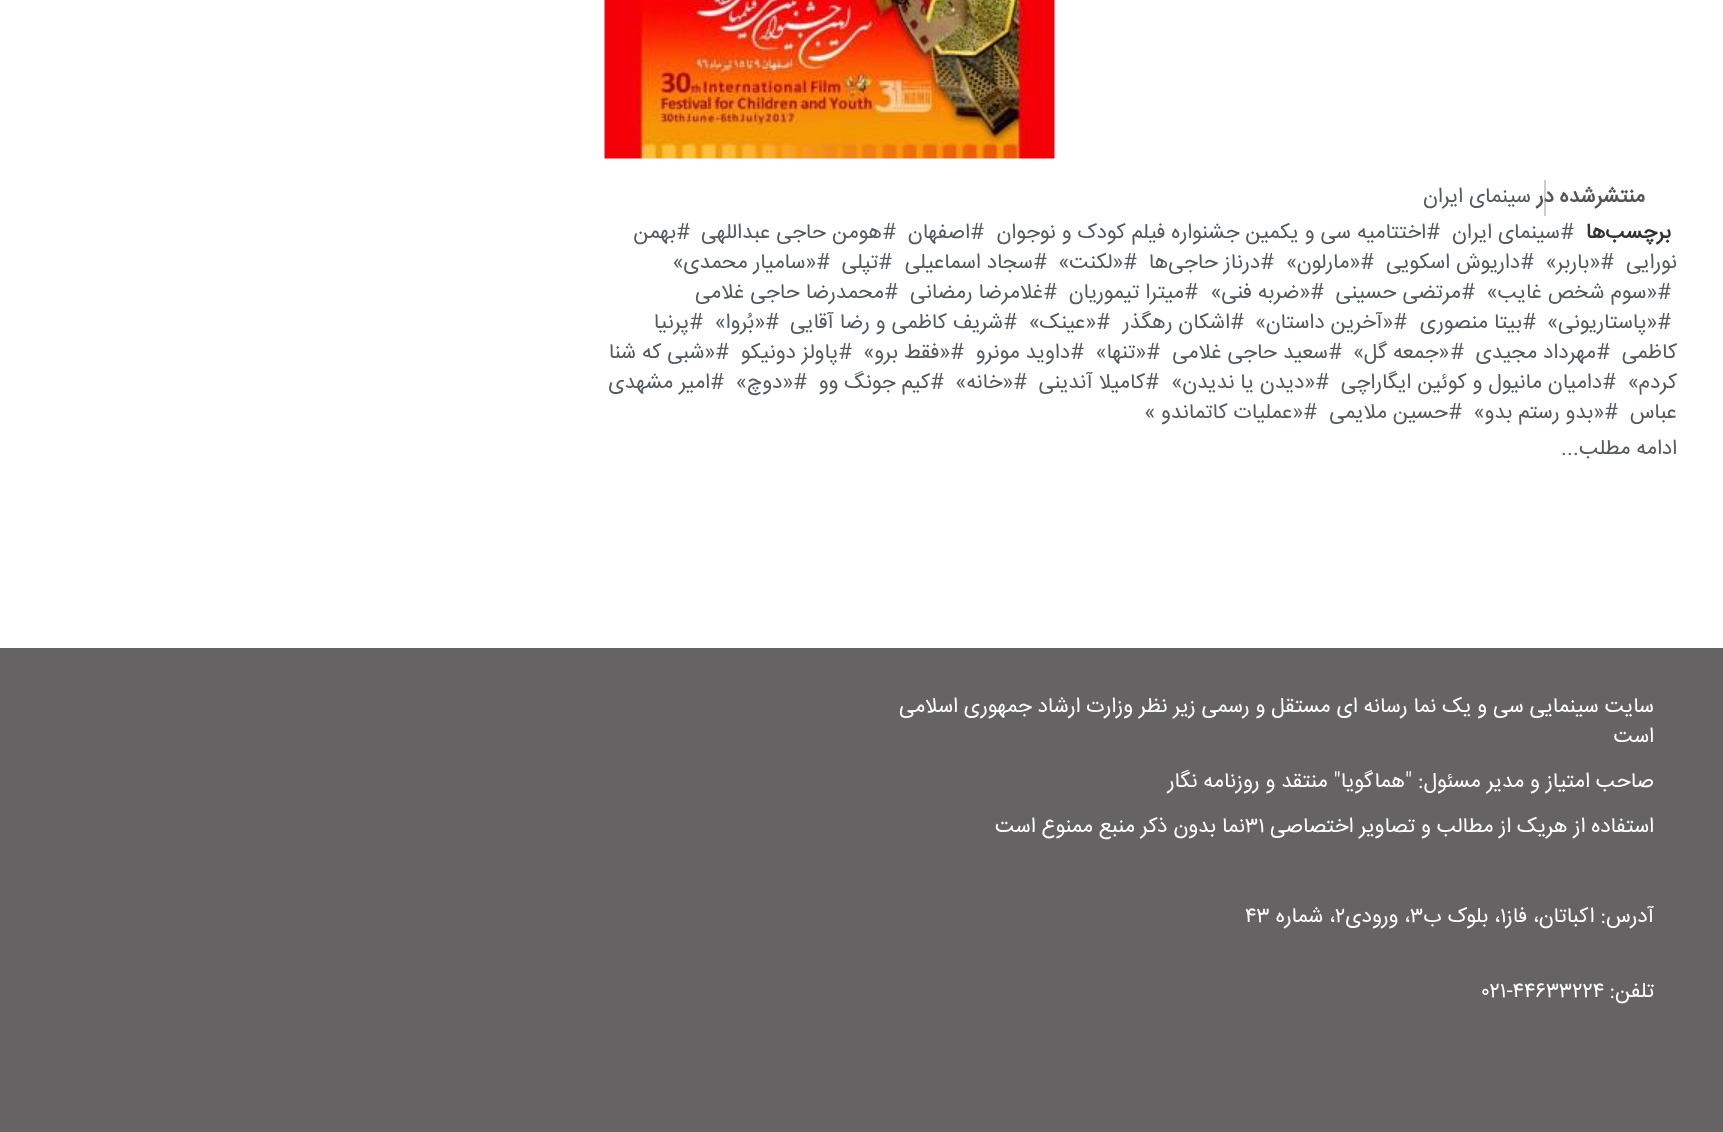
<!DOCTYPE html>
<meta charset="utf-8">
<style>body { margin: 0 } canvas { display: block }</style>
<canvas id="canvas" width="1723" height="1132"></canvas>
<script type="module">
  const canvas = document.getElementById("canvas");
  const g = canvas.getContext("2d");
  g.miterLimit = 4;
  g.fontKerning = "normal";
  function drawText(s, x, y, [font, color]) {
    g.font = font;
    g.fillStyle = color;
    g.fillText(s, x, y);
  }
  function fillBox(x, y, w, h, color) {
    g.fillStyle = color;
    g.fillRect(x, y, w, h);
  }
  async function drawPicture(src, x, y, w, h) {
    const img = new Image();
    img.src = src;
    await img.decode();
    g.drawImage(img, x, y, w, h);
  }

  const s1 = ["bold 21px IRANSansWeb", "#555555"];
  const s2 = ["21px IRANSansWeb", "#535A60"];
  const s3 = ["bold 21px IRANSansWeb", "#333333"];
  const s4 = ["21px IRANSansWeb", "#FFFFFF"];

  fillBox(0, 0, 1723, 1132, "#FFFFFF");
  await drawPicture("pic1.png", 604, 0, 451, 159);
  fillBox(1544, 180, 2, 36, "#CCCCCC");
  g.direction = "rtl";
  drawText("منتشرشده در", 1645, 202, s1);
  drawText("سینمای ایران", 1531, 202, s2);
  drawText("برچسب‌ها", 1671, 238, s3);
  g.direction = "ltr";
  drawText("#", 1560, 238, s2);
  g.direction = "rtl";
  drawText("سینمای ایران", 1560, 238, s2);
  g.direction = "ltr";
  drawText("#", 1426, 238, s2);
  g.direction = "rtl";
  drawText("اختتامیه سی و یکمین جشنواره فیلم کودک و نوجوان", 1426, 238, s2);
  g.direction = "ltr";
  drawText("#", 970, 238, s2);
  g.direction = "rtl";
  drawText("اصفهان", 970, 238, s2);
  g.direction = "ltr";
  drawText("#", 882, 238, s2);
  g.direction = "rtl";
  drawText("هومن حاجی عبداللهی", 882, 238, s2);
  g.direction = "ltr";
  drawText("#", 676, 238, s2);
  g.direction = "rtl";
  drawText("بهمن", 676, 238, s2);
  drawText("نورایی", 1677, 268, s2);
  g.direction = "ltr";
  drawText("#", 1600, 268, s2);
  g.direction = "rtl";
  drawText("«باربر»", 1600, 268, s2);
  g.direction = "ltr";
  drawText("#", 1520, 268, s2);
  g.direction = "rtl";
  drawText("داریوش اسکویی", 1520, 268, s2);
  g.direction = "ltr";
  drawText("#", 1360, 268, s2);
  g.direction = "rtl";
  drawText("«مارلون»", 1360, 268, s2);
  g.direction = "ltr";
  drawText("#", 1260, 268, s2);
  g.direction = "rtl";
  drawText("درناز حاجی‌ها", 1260, 268, s2);
  g.direction = "ltr";
  drawText("#", 1123, 268, s2);
  g.direction = "rtl";
  drawText("«لکنت»", 1123, 268, s2);
  g.direction = "ltr";
  drawText("#", 1033, 268, s2);
  g.direction = "rtl";
  drawText("سجاد اسماعیلی", 1033, 268, s2);
  g.direction = "ltr";
  drawText("#", 878, 268, s2);
  g.direction = "rtl";
  drawText("تپلی", 878, 268, s2);
  g.direction = "ltr";
  drawText("#", 816, 268, s2);
  g.direction = "rtl";
  drawText("«سامیار محمدی»", 816, 268, s2);
  g.direction = "ltr";
  drawText("#", 1657, 298, s2);
  g.direction = "rtl";
  drawText("«سوم شخص غایب»", 1657, 298, s2);
  g.direction = "ltr";
  drawText("#", 1461, 298, s2);
  g.direction = "rtl";
  drawText("مرتضی حسینی", 1461, 298, s2);
  g.direction = "ltr";
  drawText("#", 1310, 298, s2);
  g.direction = "rtl";
  drawText("«ضربه فنی»", 1310, 298, s2);
  g.direction = "ltr";
  drawText("#", 1184, 298, s2);
  g.direction = "rtl";
  drawText("میترا تیموریان", 1184, 298, s2);
  g.direction = "ltr";
  drawText("#", 1043, 298, s2);
  g.direction = "rtl";
  drawText("غلامرضا رمضانی", 1043, 298, s2);
  g.direction = "ltr";
  drawText("#", 884, 298, s2);
  g.direction = "rtl";
  drawText("محمدرضا حاجی غلامی", 884, 298, s2);
  g.direction = "ltr";
  drawText("#", 1657, 328, s2);
  g.direction = "rtl";
  drawText("«پاستاریونی»", 1657, 328, s2);
  g.direction = "ltr";
  drawText("#", 1522, 328, s2);
  g.direction = "rtl";
  drawText("بیتا منصوری", 1522, 328, s2);
  g.direction = "ltr";
  drawText("#", 1393, 328, s2);
  g.direction = "rtl";
  drawText("«آخرین داستان»", 1393, 328, s2);
  g.direction = "ltr";
  drawText("#", 1230, 328, s2);
  g.direction = "rtl";
  drawText("اشکان رهگذر", 1230, 328, s2);
  g.direction = "ltr";
  drawText("#", 1096, 328, s2);
  g.direction = "rtl";
  drawText("«عینک»", 1096, 328, s2);
  g.direction = "ltr";
  drawText("#", 1003, 328, s2);
  g.direction = "rtl";
  drawText("شریف کاظمی و رضا آقایی", 1003, 328, s2);
  g.direction = "ltr";
  drawText("#", 765, 328, s2);
  g.direction = "rtl";
  drawText("«بُروا»", 765, 328, s2);
  g.direction = "ltr";
  drawText("#", 689, 328, s2);
  g.direction = "rtl";
  drawText("پرنیا", 689, 328, s2);
  drawText("کاظمی", 1677, 358, s2);
  g.direction = "ltr";
  drawText("#", 1596, 358, s2);
  g.direction = "rtl";
  drawText("مهرداد مجیدی", 1596, 358, s2);
  g.direction = "ltr";
  drawText("#", 1450, 358, s2);
  g.direction = "rtl";
  drawText("«جمعه گل»", 1449, 358, s2);
  g.direction = "ltr";
  drawText("#", 1328, 358, s2);
  g.direction = "rtl";
  drawText("سعید حاجی غلامی", 1328, 358, s2);
  g.direction = "ltr";
  drawText("#", 1146, 358, s2);
  g.direction = "rtl";
  drawText("«تنها»", 1146, 358, s2);
  g.direction = "ltr";
  drawText("#", 1070, 358, s2);
  g.direction = "rtl";
  drawText("داوید مونرو", 1070, 358, s2);
  g.direction = "ltr";
  drawText("#", 950, 358, s2);
  g.direction = "rtl";
  drawText("«فقط برو»", 950, 358, s2);
  g.direction = "ltr";
  drawText("#", 838, 358, s2);
  g.direction = "rtl";
  drawText("پاولز دونیکو", 838, 358, s2);
  g.direction = "ltr";
  drawText("#", 715, 358, s2);
  g.direction = "rtl";
  drawText("«شبی که شنا", 715, 358, s2);
  drawText("کردم»", 1677, 388, s2);
  g.direction = "ltr";
  drawText("#", 1602, 388, s2);
  g.direction = "rtl";
  drawText("دامیان مانیول و کوئین ایگاراچی", 1602, 388, s2);
  g.direction = "ltr";
  drawText("#", 1315, 388, s2);
  g.direction = "rtl";
  drawText("«دیدن یا ندیدن»", 1315, 388, s2);
  g.direction = "ltr";
  drawText("#", 1145, 388, s2);
  g.direction = "rtl";
  drawText("کامیلا آندینی", 1145, 388, s2);
  g.direction = "ltr";
  drawText("#", 1013, 388, s2);
  g.direction = "rtl";
  drawText("«خانه»", 1013, 388, s2);
  g.direction = "ltr";
  drawText("#", 930, 388, s2);
  g.direction = "rtl";
  drawText("کیم جونگ وو", 930, 388, s2);
  g.direction = "ltr";
  drawText("#", 793, 388, s2);
  g.direction = "rtl";
  drawText("«دوچ»", 793, 388, s2);
  g.direction = "ltr";
  drawText("#", 710, 388, s2);
  g.direction = "rtl";
  drawText("امیر مشهدی", 710, 388, s2);
  drawText("عباس", 1677, 418, s2);
  g.direction = "ltr";
  drawText("#", 1604, 418, s2);
  g.direction = "rtl";
  drawText("«بدو رستم بدو»", 1604, 418, s2);
  g.direction = "ltr";
  drawText("#", 1448, 418, s2);
  g.direction = "rtl";
  drawText("حسین ملایمی", 1448, 418, s2);
  g.direction = "ltr";
  drawText("#", 1303, 418, s2);
  g.direction = "rtl";
  drawText("«عملیات کاتماندو »", 1303, 418, s2);
  drawText("ادامه مطلب...", 1677, 454, s2);
  fillBox(0, 648, 1723, 484, "#656363");
  drawText("سایت سینمایی سی و یک نما رسانه ای مستقل و رسمی زیر نظر وزارت ارشاد جمهوری اسلامی", 1654, 712, s4);
  drawText("است", 1654, 742, s4);
  drawText("صاحب امتیاز و مدیر مسئول: \"هماگویا\" منتقد و روزنامه نگار", 1654, 787, s4);
  drawText("استفاده از هریک از مطالب و تصاویر اختصاصی", 1654, 832, s4);
  g.direction = "ltr";
  drawText("۳۱", 1245, 832, s4);
  g.direction = "rtl";
  drawText("نما بدون ذکر منبع ممنوع است", 1245, 832, s4);
  drawText("آدرس: اکباتان، فاز", 1654, 922, s4);
  g.direction = "ltr";
  drawText("۱", 1500, 922, s4);
  g.direction = "rtl";
  drawText("، بلوک ب", 1500, 922, s4);
  g.direction = "ltr";
  drawText("۳", 1410, 922, s4);
  g.direction = "rtl";
  drawText("، ورودی", 1410, 922, s4);
  g.direction = "ltr";
  drawText("۲", 1335, 922, s4);
  g.direction = "rtl";
  drawText("، شماره", 1335, 922, s4);
  g.direction = "ltr";
  drawText("۴۳", 1245, 922, s4);
  g.direction = "rtl";
  drawText("تلفن:", 1654, 997, s4);
  g.direction = "ltr";
  drawText("۰۲۱-۴۴۶۳۳۲۲۴", 1482, 997, s4);
</script>
